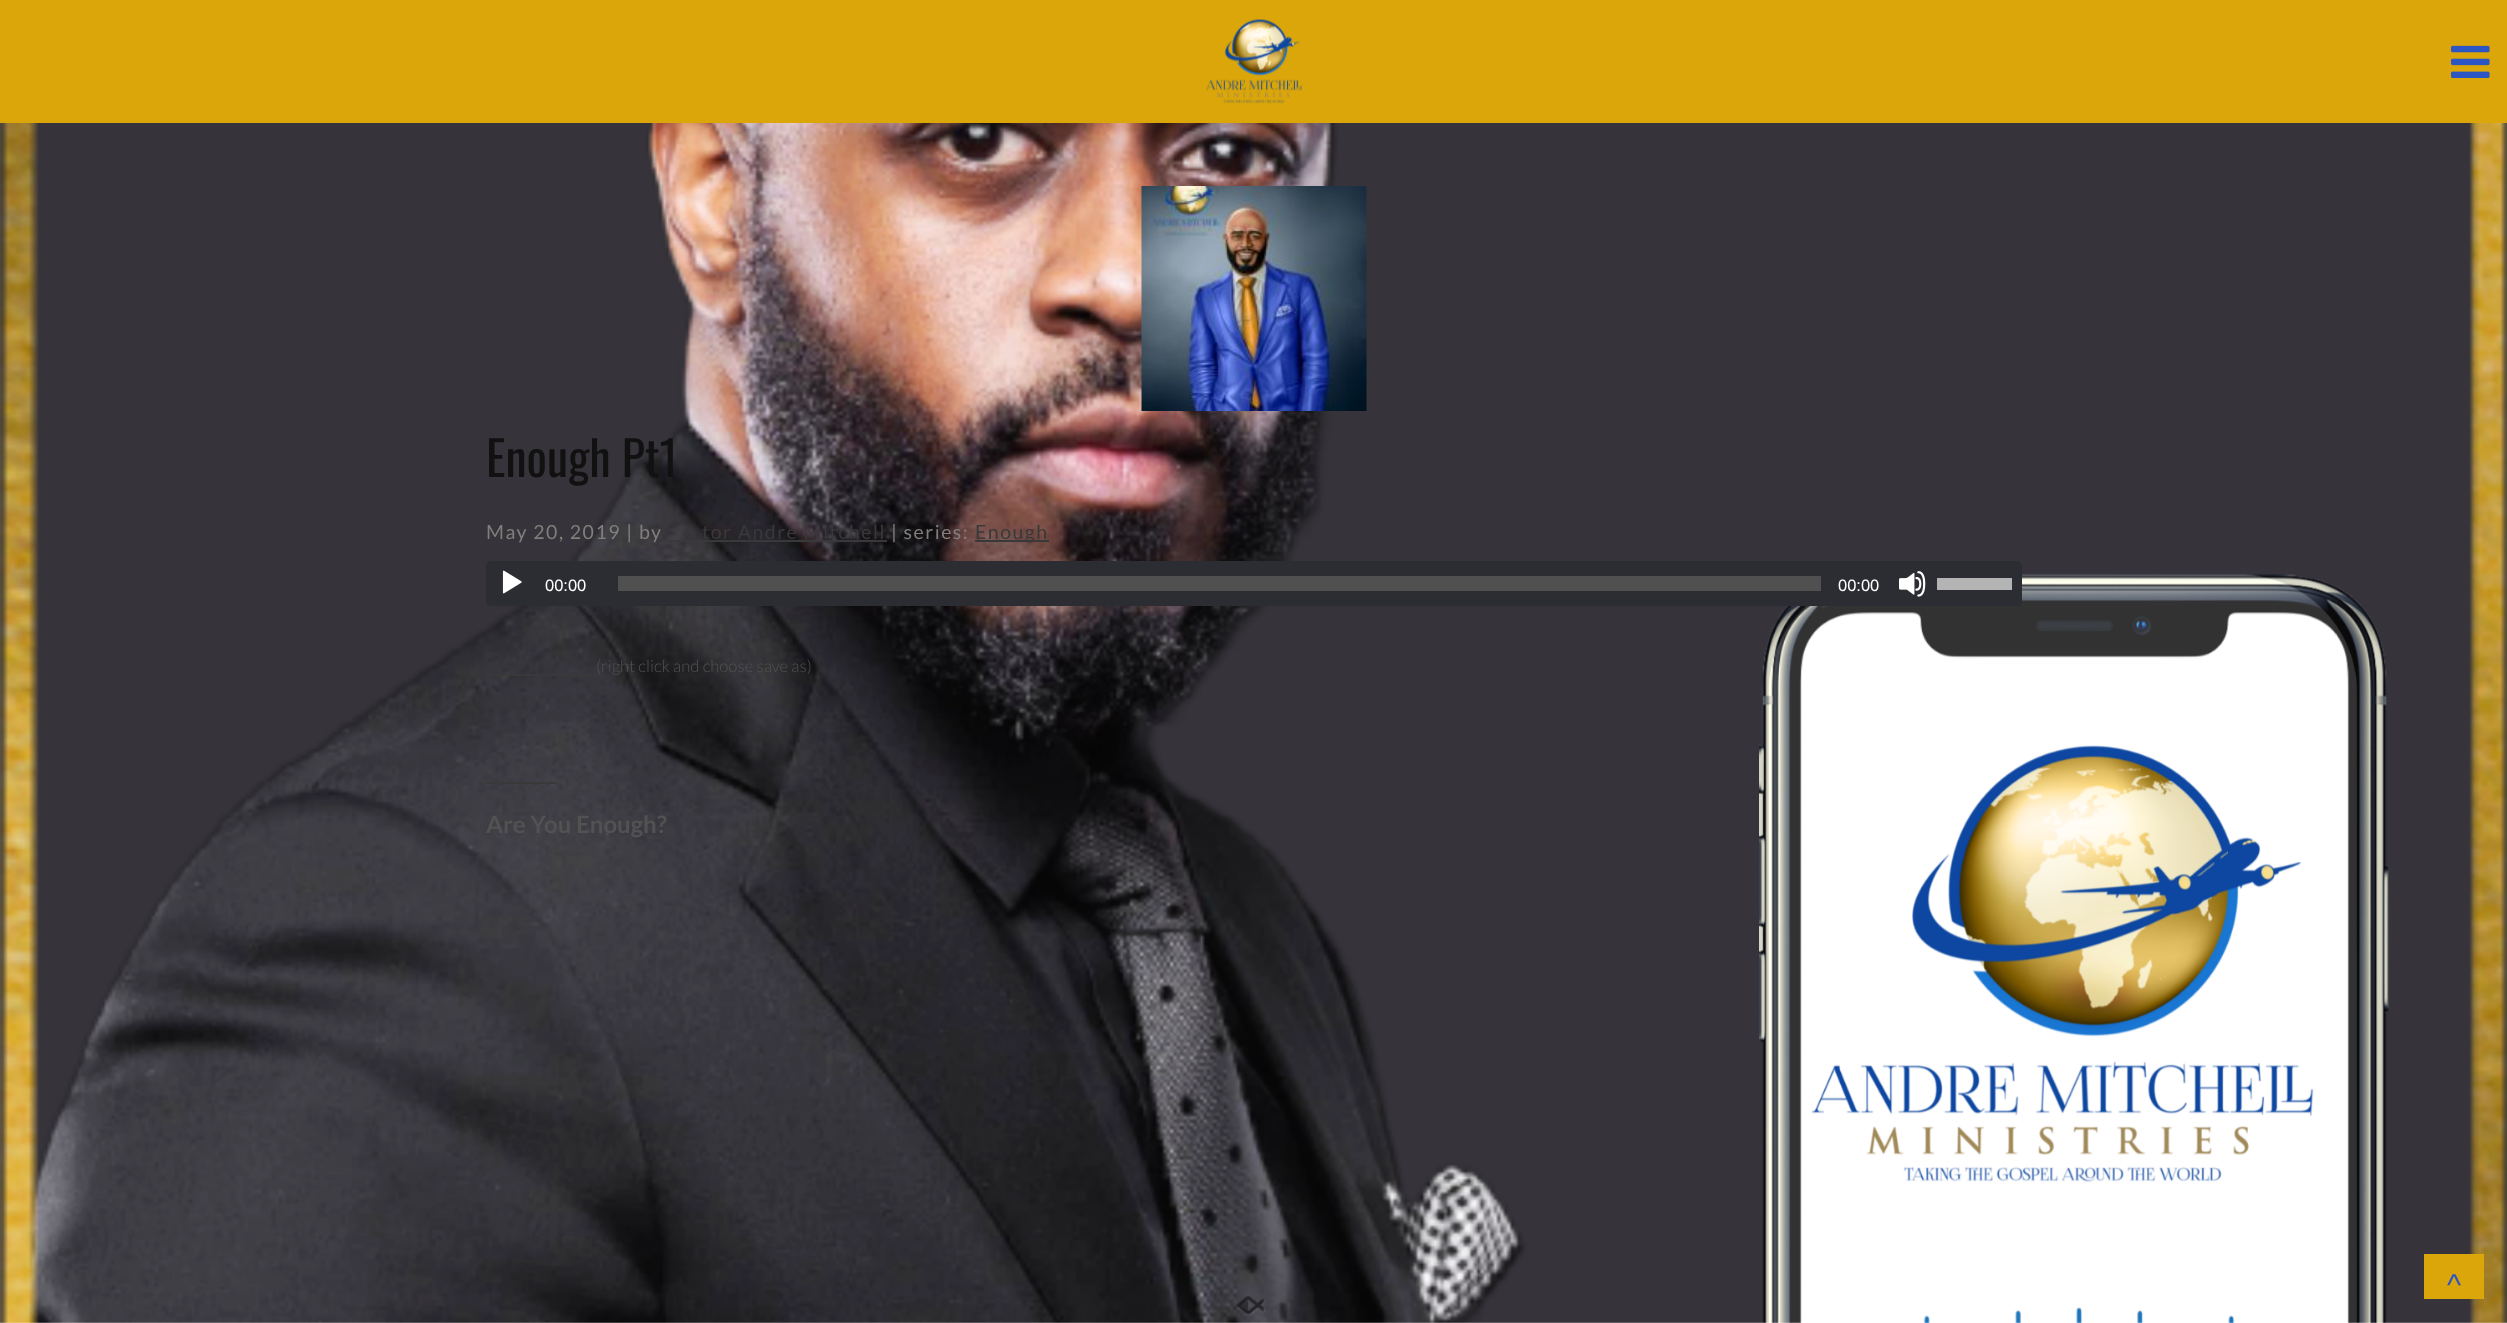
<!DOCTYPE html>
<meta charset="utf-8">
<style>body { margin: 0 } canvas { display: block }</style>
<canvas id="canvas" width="2507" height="1323"></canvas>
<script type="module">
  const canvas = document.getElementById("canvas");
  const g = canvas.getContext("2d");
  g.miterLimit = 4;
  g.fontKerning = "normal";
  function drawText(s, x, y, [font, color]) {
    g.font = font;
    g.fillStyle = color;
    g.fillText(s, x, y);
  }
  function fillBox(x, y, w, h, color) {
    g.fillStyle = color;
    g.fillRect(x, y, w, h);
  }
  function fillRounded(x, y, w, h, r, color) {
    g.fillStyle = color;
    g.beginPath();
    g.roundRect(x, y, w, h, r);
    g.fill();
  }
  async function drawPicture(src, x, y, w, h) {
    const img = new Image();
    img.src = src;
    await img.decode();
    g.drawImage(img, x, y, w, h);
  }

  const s1 = ["48px Oswald", "#111111"];
  const s2 = ["19.5px Lato", "#817F7B"];
  const s3 = ["19.5px Lato", "#3A3939"];
  const s4 = ["16.5px Liberation Sans", "#FFFFFF"];
  const s5 = ["300 16.75px Lato", "#525252"];
  const s6 = ["bold 24px Lato", "#525252"];
  const s7 = ["30px Liberation Sans", "#2B56C4"];

  fillBox(0, 0, 2507, 1323, "#FFFFFF");
  await drawPicture("pic1.png", 0, 123, 2507, 1200);
  fillBox(0, 0, 2507, 123, "#DBA609");
  await drawPicture("pic2.png", 1206, 19, 96, 85);
  await drawPicture("pic3.png", 2451, 45, 39, 33);
  await drawPicture("pic4.png", 1141, 186, 226, 225);
  drawText("Enough Pt1", 486, 477, s1);
  g.letterSpacing = "1.5px";
  drawText("May 20, 2019 | by", 486, 539, s2);
  drawText("tor Andre Mitchell", 702, 539, s3);
  fillBox(668, 540, 219, 2, "#3A3939");
  drawText("| series:", 891, 539, s2);
  fillBox(975, 540, 74, 2, "#3A3939");
  drawText("Enough", 975, 539, s3);
  fillRounded(486, 561, 1536, 45, 5, "#2C2D33");
  await drawPicture("pic5.png", 502, 570, 20, 24);
  g.letterSpacing = "0px";
  drawText("00:00", 545, 591, s4);
  fillBox(618, 576, 1203, 15, "#505050");
  drawText("00:00", 1838, 591, s4);
  await drawPicture("pic6.png", 1899, 571, 27, 26);
  fillBox(1937, 578, 75, 12, "#B4B4B4");
  drawText("(right click and choose save as)", 596, 672, s5);
  fillBox(486, 674, 105, 2, "#3A3939");
  fillBox(486, 782, 71, 2, "#3A3939");
  drawText("Are You Enough?", 486, 833, s6);
  fillBox(2424, 1254, 60, 45, "#DBA609");
  drawText("^", 2447, 1295, s7);
  await drawPicture("pic7.png", 1236, 1296, 29, 20);
</script>
